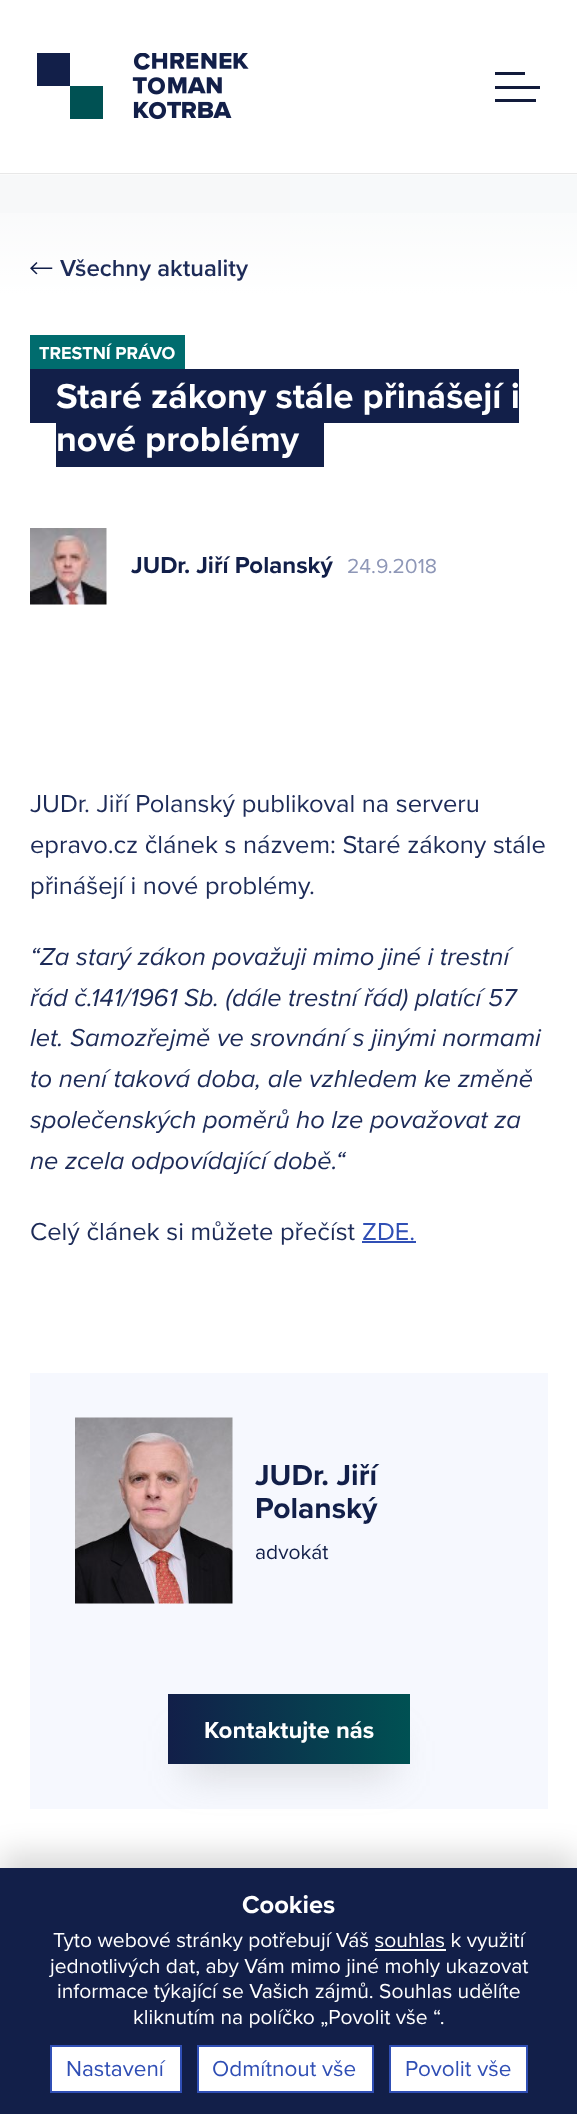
<!DOCTYPE html>
<meta charset="utf-8">
<style>body { margin: 0 } canvas { display: block }</style>
<canvas id="canvas" width="577" height="2114"></canvas>
<script type="module">
  const canvas = document.getElementById("canvas");
  const g = canvas.getContext("2d");
  g.miterLimit = 4;
  g.fontKerning = "normal";
  function drawText(s, x, y, [font, color]) {
    g.font = font;
    g.fillStyle = color;
    g.fillText(s, x, y);
  }
  function fillBox(x, y, w, h, color) {
    g.fillStyle = color;
    g.fillRect(x, y, w, h);
  }
  async function drawPicture(src, x, y, w, h) {
    const img = new Image();
    img.src = src;
    await img.decode();
    g.drawImage(img, x, y, w, h);
  }
  let gradient;

  const s1 = ["600 24px Proxima Nova", "#1D2B58"];
  const s2 = ["bold 18px Proxima Nova", "#FFFFFF"];
  const s3 = ["bold 36px Proxima Nova", "#FFFFFF"];
  const s4 = ["bold 24px Proxima Nova", "#121F49"];
  const s5 = ["21px Proxima Nova", "#8E97B7"];
  const s6 = ["25.5px Proxima Nova", "#1D2B58"];
  const s7 = ["italic 25.5px Proxima Nova", "#1D2B58"];
  const s8 = ["25.5px Proxima Nova", "#304FB5"];
  const s9 = ["bold 30px Proxima Nova", "#121F49"];
  const s10 = ["21px Proxima Nova", "#121F49"];
  const s11 = ["bold 24px Proxima Nova", "#FFFFFF"];
  const s12 = ["bold 25.5px Proxima Nova", "#FFFFFF"];
  const s13 = ["21px Proxima Nova", "#FFFFFF"];
  const s14 = ["22.5px Proxima Nova", "#304FB5"];

  fillBox(0, 0, 577, 2114, "#FFFFFF");
  fillBox(0, 175, 290, 118, "#F7F8F9");
  fillBox(290, 175, 287, 118, "#F7F9FA");
  gradient = g.createLinearGradient(289, 174, 289, 294);
  gradient.addColorStop(0, "rgba(255, 255, 255, 0)");
  gradient.addColorStop(1, "#FFFFFF");
  g.fillStyle = gradient;
  g.fillRect(0, 213, 577, 80);
  fillBox(0, 173, 577, 1, "#E8E8E8");
  fillBox(0, 174, 577, 1, "#FBFBFB");
  await drawPicture("pic1.png", 37, 53, 212, 67);
  fillBox(495, 72, 30, 3, "#121B3B");
  fillBox(495, 86, 45, 3, "#121B3B");
  fillBox(495, 99, 41, 3, "#121B3B");
  await drawPicture("pic2.png", 30, 262, 23, 13);
  drawText("Všechny aktuality", 60, 276, s1);
  fillBox(30, 335, 155, 34, "#006C6E");
  drawText("TRESTNÍ PRÁVO", 39, 359, s2);
  fillBox(30, 369, 489, 54, "#121F49");
  drawText("Staré zákony stále přinášejí i", 56, 408, s3);
  fillBox(56, 423, 268, 44, "#121F49");
  drawText("nové problémy", 56, 451, s3);
  await drawPicture("pic3.png", 30, 528, 77, 77);
  drawText("JUDr. Jiří Polanský", 131, 573, s4);
  drawText("24.9.2018", 347, 573, s5);
  drawText("JUDr. Jiří Polanský publikoval na serveru", 30, 812, s6);
  drawText("epravo.cz článek s názvem: Staré zákony stále", 30, 853, s6);
  drawText("přinášejí i nové problémy.", 30, 894, s6);
  drawText("“Za starý zákon považuji mimo jiné i trestní", 30, 965, s7);
  drawText("řád č.141/1961 Sb. (dále trestní řád) platící 57", 30, 1006, s7);
  drawText("let. Samozřejmě ve srovnání s jinými normami", 30, 1046, s7);
  drawText("to není taková doba, ale vzhledem ke změně", 30, 1087, s7);
  drawText("společenských poměrů ho lze považovat za", 30, 1128, s7);
  drawText("ne zcela odpovídající době.“", 30, 1169, s7);
  drawText("Celý článek si můžete přečíst", 30, 1240, s6);
  drawText("ZDE.", 362, 1240, s8);
  fillBox(362, 1241, 54, 2, "#304FB5");
  fillBox(30, 1373, 518, 436, "#F6F8FE");
  await drawPicture("pic4.png", 75, 1417, 158, 187);
  drawText("JUDr. Jiří", 255, 1485, s9);
  drawText("Polanský", 255, 1518, s9);
  drawText("advokát", 255, 1559, s10);
  g.fillStyle = "rgba(148, 148, 148, 0.35)";
  g.filter = "blur(19px)";
  g.beginPath();
  g.rect(186, 1739, 206, 34);
  g.fill();
  g.filter = "none";
  gradient = g.createLinearGradient(168, 1729, 410, 1729);
  gradient.addColorStop(0, "#121F49");
  gradient.addColorStop(1, "#005153");
  g.fillStyle = gradient;
  g.fillRect(168, 1694, 242, 70);
  drawText("Kontaktujte nás", 204, 1738, s11);
  g.fillStyle = "rgba(0, 0, 0, 0.15)";
  g.filter = "blur(15px)";
  g.beginPath();
  g.rect(0, 1853, 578, 247);
  g.fill();
  g.filter = "none";
  fillBox(0, 1868, 577, 246, "#121F49");
  drawText("Cookies", 242, 1913, s12);
  drawText("Tyto webové stránky potřebují Váš souhlas k využití", 53, 1947, s13);
  fillBox(375, 1949, 71, 2, "#FFFFFF");
  drawText("jednotlivých dat, aby Vám mimo jiné mohly ukazovat", 50, 1973, s13);
  drawText("informace týkající se Vašich zájmů. Souhlas udělíte", 57, 1998, s13);
  drawText("kliknutím na políčko „Povolit vše “.", 133, 2024, s13);
  g.beginPath();
  g.rect(51, 2046, 130, 46);
  g.fill();
  g.strokeStyle = "#304FB5";
  g.lineWidth = 2;
  g.stroke();
  drawText("Nastavení", 66, 2076, s14);
  g.fillStyle = "#FFFFFF";
  g.beginPath();
  g.rect(198, 2046, 175, 46);
  g.fill();
  g.stroke();
  drawText("Odmítnout vše", 212, 2076, s14);
  g.fillStyle = "#FFFFFF";
  g.beginPath();
  g.rect(390, 2046, 137, 46);
  g.fill();
  g.stroke();
  drawText("Povolit vše", 405, 2076, s14);
</script>
